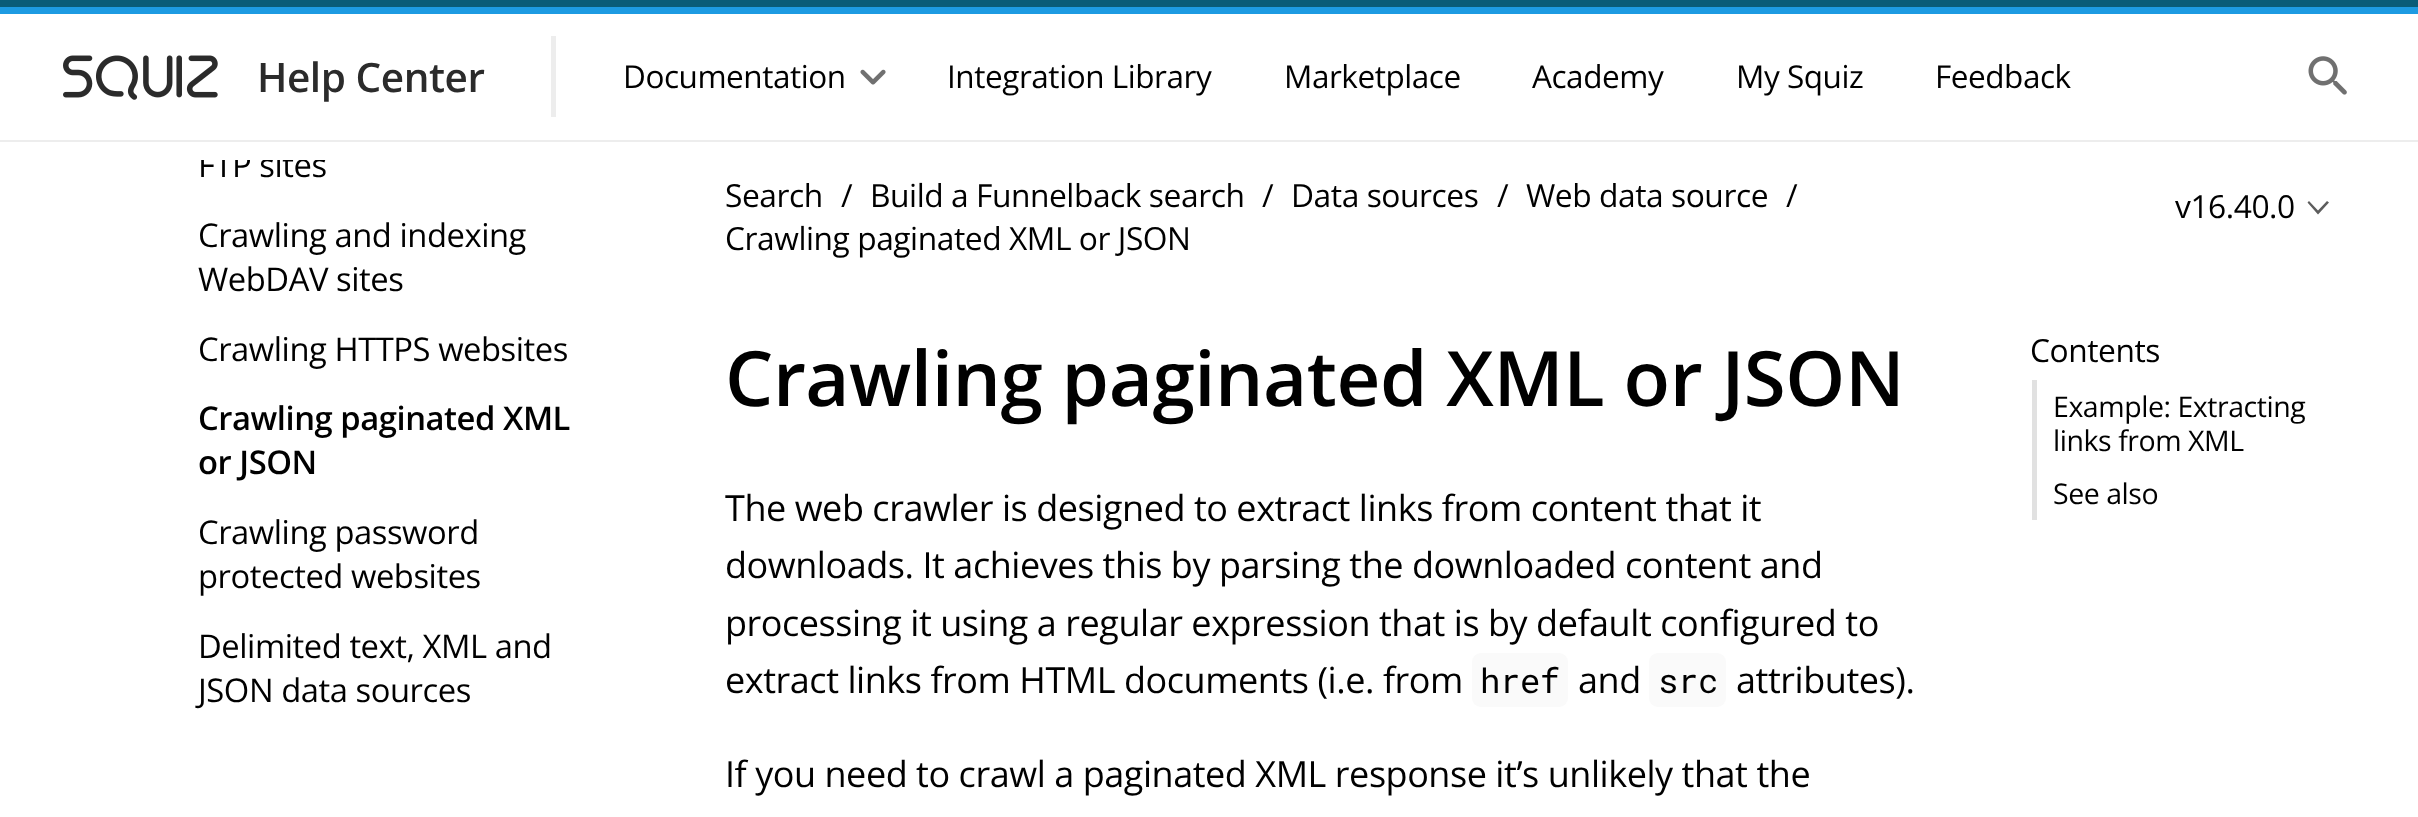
<!DOCTYPE html>
<meta charset="utf-8">
<style>body { margin: 0 } canvas { display: block }</style>
<canvas id="canvas" width="2418" height="817"></canvas>
<script type="module">
  const canvas = document.getElementById("canvas");
  const g = canvas.getContext("2d");
  g.miterLimit = 4;
  g.fontKerning = "normal";
  function drawText(s, x, y, [font, color]) {
    g.font = font;
    g.fillStyle = color;
    g.fillText(s, x, y);
  }
  function fillBox(x, y, w, h, color) {
    g.fillStyle = color;
    g.fillRect(x, y, w, h);
  }
  function fillRounded(x, y, w, h, r, color) {
    g.fillStyle = color;
    g.beginPath();
    g.roundRect(x, y, w, h, r);
    g.fill();
  }
  async function drawPicture(src, x, y, w, h) {
    const img = new Image();
    img.src = src;
    await img.decode();
    g.drawImage(img, x, y, w, h);
  }

  const s1 = ["600 40.5px Open Sans", "#2B2B2B"];
  const s2 = ["31.5px Open Sans", "#000000"];
  const s3 = ["32.75px Open Sans", "#000000"];
  const s4 = ["600 32.75px Open Sans", "#000000"];
  const s5 = ["31.75px Open Sans", "#000000"];
  const s6 = ["600 76.25px Open Sans", "#000000"];
  const s7 = ["36px Open Sans", "#000000"];
  const s8 = ["34px Roboto Mono", "#000000"];
  const s9 = ["28.5px Open Sans", "#000000"];

  fillBox(0, 0, 2418, 817, "#FFFFFF");
  fillBox(0, 140, 2418, 2, "#EDEDED");
  fillBox(0, 0, 2418, 7, "#095C78");
  fillBox(0, 7, 2418, 7, "#1D9BE2");
  fillBox(551, 36, 5, 81, "#EDEDED");
  await drawPicture("pic1.png", 63, 55, 155, 45);
  g.letterSpacing = "-0.45px";
  drawText("Help Center", 257, 92, s1);
  drawText("Documentation", 623, 88, s2);
  await drawPicture("pic2.png", 860, 69, 26, 16);
  drawText("Integration Library", 947, 88, s2);
  drawText("Marketplace", 1284, 88, s2);
  drawText("Academy", 1532, 88, s2);
  drawText("My Squiz", 1736, 88, s2);
  drawText("Feedback", 1935, 88, s2);
  await drawPicture("pic3.png", 2308, 56, 39, 39);
  g.save();
  g.beginPath();
  g.rect(45, 160, 572, 589);
  g.clip();
  drawText("FTP sites", 198, 177, s3);
  g.restore();
  drawText("Crawling and indexing", 198, 247, s3);
  drawText("WebDAV sites", 198, 291, s3);
  drawText("Crawling HTTPS websites", 198, 361, s3);
  drawText("Crawling paginated XML", 198, 430, s4);
  drawText("or JSON", 198, 474, s4);
  drawText("Crawling password", 198, 544, s3);
  drawText("protected websites", 198, 588, s3);
  drawText("Delimited text, XML and", 198, 658, s3);
  drawText("JSON data sources", 198, 702, s3);
  drawText("Search", 725, 207, s5);
  drawText("/", 841, 207, s5);
  drawText("Build a Funnelback search", 870, 207, s5);
  drawText("/", 1262, 207, s5);
  drawText("Data sources", 1291, 207, s5);
  drawText("/", 1497, 207, s5);
  drawText("Web data source", 1526, 207, s5);
  drawText("/", 1786, 207, s5);
  drawText("Crawling paginated XML or JSON", 725, 250, s5);
  g.fillStyle = "#5D5D5D";
  g.beginPath();
  g.moveTo(2309, 201);
  g.lineTo(2307.5, 202.5);
  g.lineTo(2318, 214.5);
  g.lineTo(2329, 202.5);
  g.lineTo(2327, 201);
  g.lineTo(2318, 210.5);
  g.closePath();
  g.fill();
  drawText("v16.40.0", 2175, 218, s5);
  drawText("Crawling paginated XML or JSON", 725, 406, s6);
  drawText("The web crawler is designed to extract links from content that it", 725, 521, s7);
  drawText("downloads. It achieves this by parsing the downloaded content and", 725, 578, s7);
  drawText("processing it using a regular expression that is by default configured to", 725, 636, s7);
  drawText("extract links from HTML documents (i.e. from", 725, 693, s7);
  fillRounded(1472, 653, 96, 54, 9, "#FAFAFA");
  drawText("href", 1480, 693, s8);
  drawText("and", 1578, 693, s7);
  fillRounded(1649, 653, 77, 54, 9, "#FAFAFA");
  drawText("src", 1658, 693, s8);
  drawText("attributes).", 1736, 693, s7);
  drawText("If you need to crawl a paginated XML response it’s unlikely that the", 725, 787, s7);
  drawText("Contents", 2030, 362, s5);
  fillBox(2032, 380, 5, 140, "#E1E1E1");
  drawText("Example: Extracting", 2053, 417, s9);
  drawText("links from XML", 2053, 451, s9);
  drawText("See also", 2053, 504, s9);
</script>
